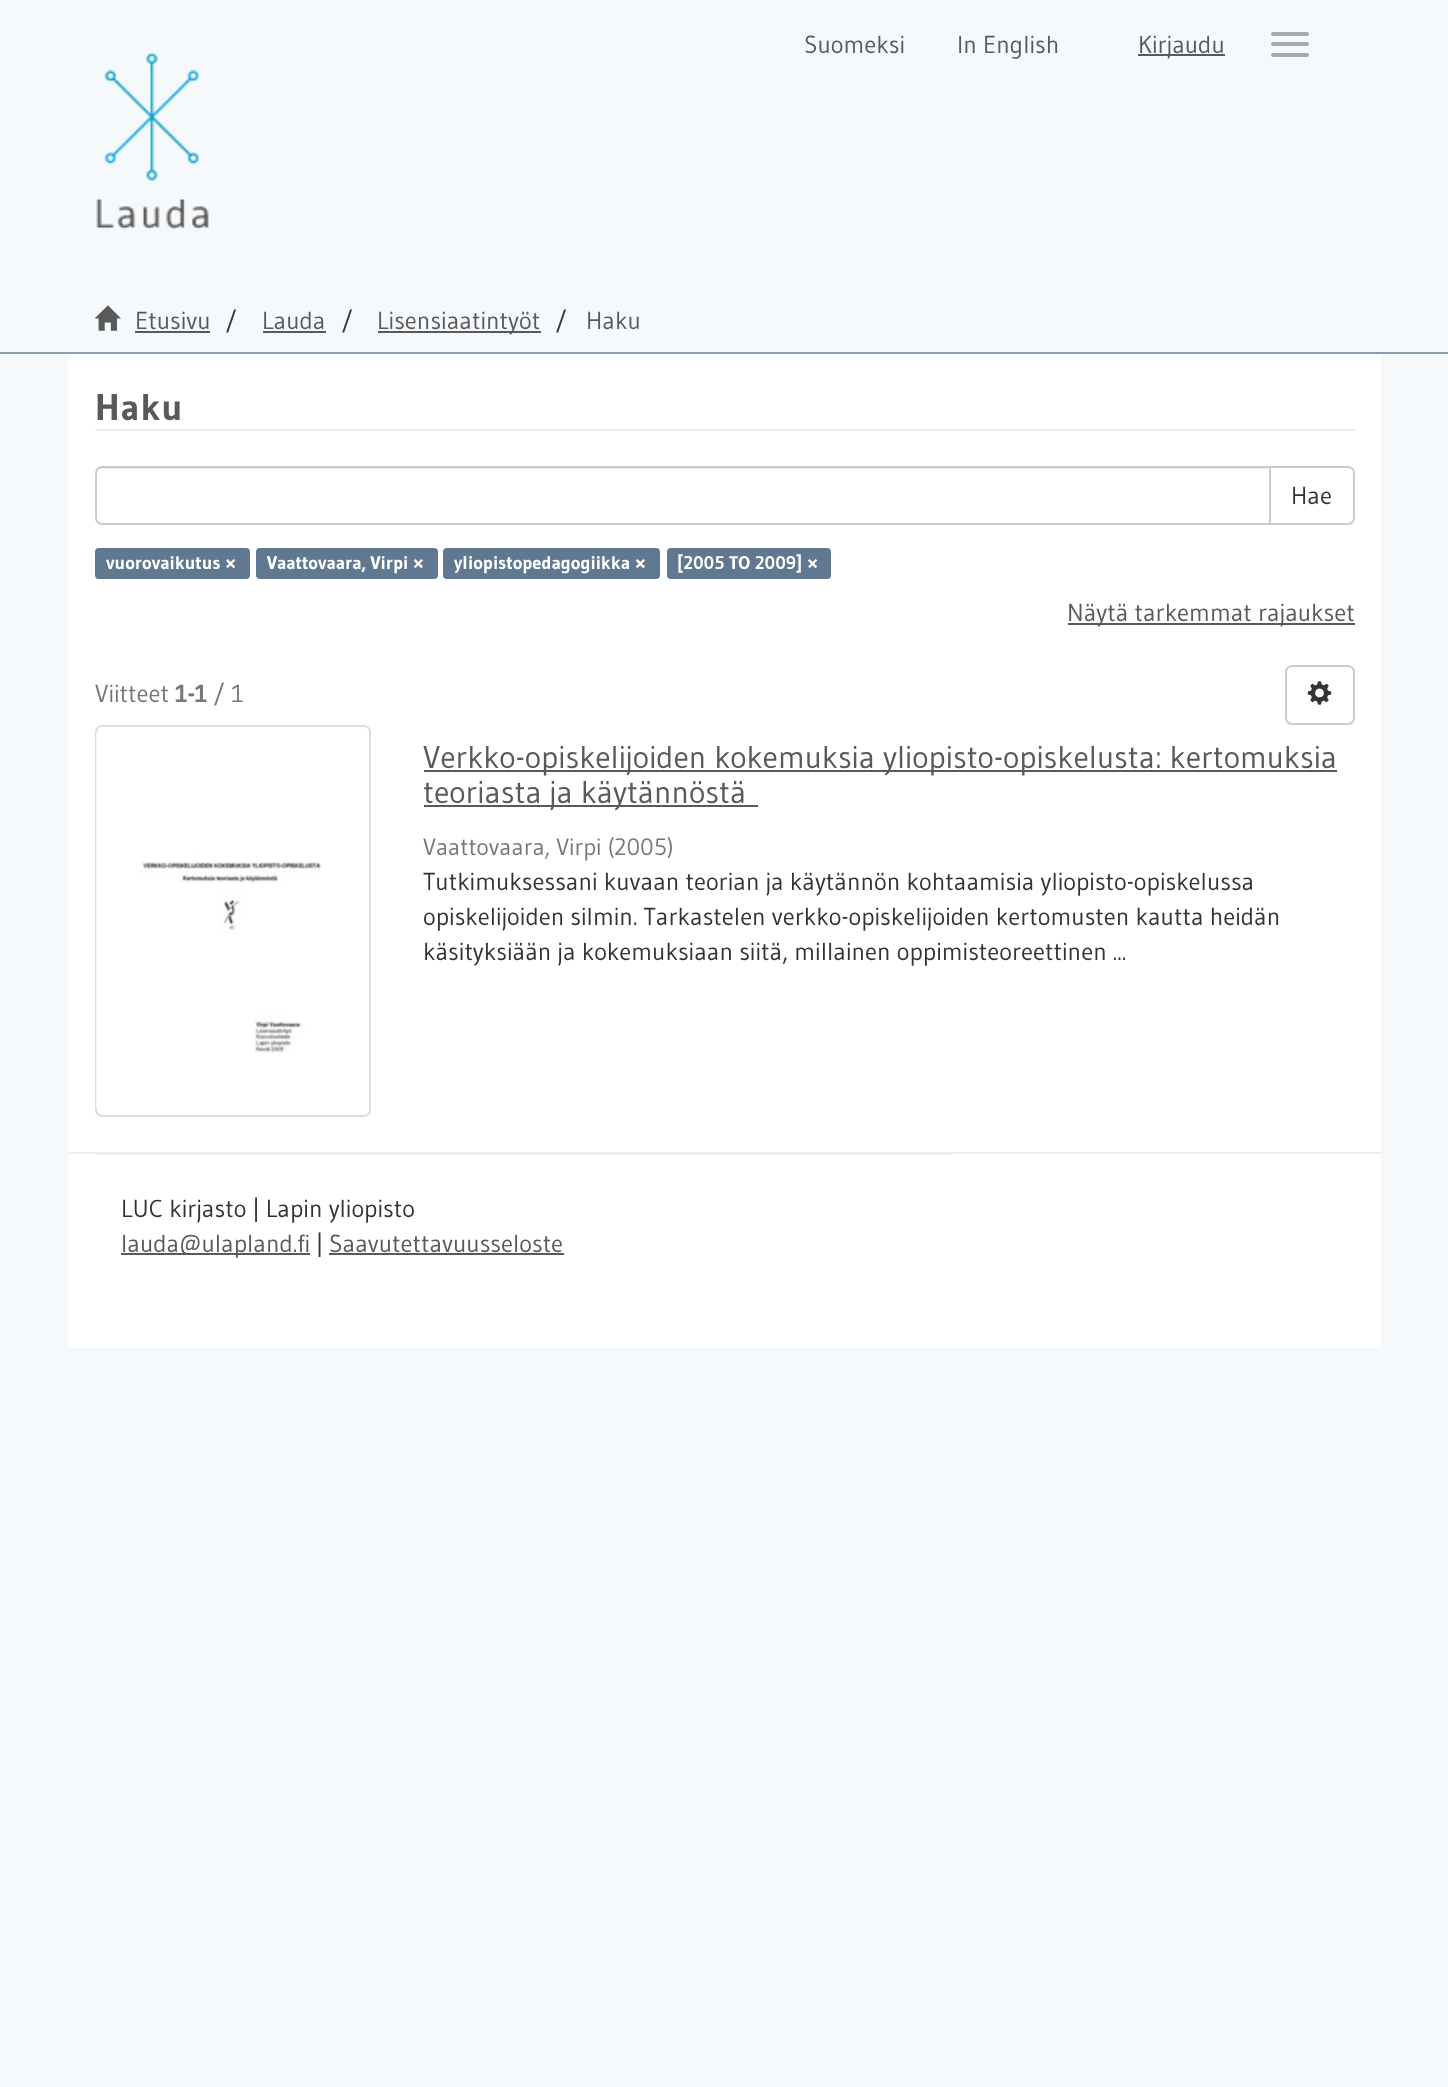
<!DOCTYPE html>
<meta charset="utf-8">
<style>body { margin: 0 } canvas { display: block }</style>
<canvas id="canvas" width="1448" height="2087"></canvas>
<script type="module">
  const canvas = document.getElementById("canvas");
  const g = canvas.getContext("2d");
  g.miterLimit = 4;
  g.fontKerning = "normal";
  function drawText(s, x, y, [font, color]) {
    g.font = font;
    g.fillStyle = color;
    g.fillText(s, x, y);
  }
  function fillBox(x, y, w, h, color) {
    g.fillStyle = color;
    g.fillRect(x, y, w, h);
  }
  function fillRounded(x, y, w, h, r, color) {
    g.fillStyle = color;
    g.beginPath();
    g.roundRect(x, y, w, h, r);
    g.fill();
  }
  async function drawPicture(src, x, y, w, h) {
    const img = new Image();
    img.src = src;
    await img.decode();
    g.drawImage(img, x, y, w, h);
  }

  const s1 = ["24.5px Gudea", "#595959"];
  const s2 = ["24.5px Gudea", "#333333"];
  const s3 = ["bold 37px Gudea", "#595959"];
  const s4 = ["bold 18.4px Gudea", "#FFFFFF"];
  const s5 = ["24.5px Gudea", "#777777"];
  const s6 = ["bold 24.5px Gudea", "#777777"];
  const s7 = ["31.5px Gudea", "#595959"];
  const s8 = ["23.6px Gudea", "#777777"];

  fillBox(0, 0, 1448, 2087, "#F6F9FC");
  drawText("Suomeksi", 804, 53, s1);
  drawText("In English", 957, 53, s1);
  fillBox(1138, 54, 87, 2, "#595959");
  drawText("Kirjaudu", 1138, 53, s1);
  fillRounded(1271, 32, 38, 4, 2, "#A8A9AB");
  fillRounded(1271, 42, 38, 4, 2, "#A8A9AB");
  fillRounded(1271, 53, 38, 4, 2, "#A8A9AB");
  await drawPicture("pic1.png", 96, 52, 113, 178);
  fillBox(0, 352, 1448, 2, "#8B9EB2");
  await drawPicture("pic2.png", 94, 305, 27, 26);
  drawText("Etusivu", 135, 329, s1);
  fillBox(135, 331, 75, 2, "#595959");
  drawText("/", 225, 329, s2);
  drawText("Lauda", 262, 329, s1);
  fillBox(263, 331, 63, 2, "#595959");
  drawText("/", 341, 329, s2);
  fillBox(378, 331, 163, 2, "#595959");
  drawText("Lisensiaatintyöt", 377, 329, s1);
  drawText("/", 555, 329, s2);
  drawText("Haku", 586, 329, s1);
  fillBox(68, 354, 1313, 994, "#FFFFFF");
  fillBox(95, 429, 1260, 2, "#EEEEEE");
  g.letterSpacing = "1px";
  drawText("Haku", 95, 420, s3);
  g.beginPath();
  g.roundRect(1270, 467, 84, 57, [0, 6, 6, 0]);
  g.strokeStyle = "#CCCCCC";
  g.lineWidth = 2;
  g.stroke();
  g.fillStyle = "#FFFFFF";
  g.beginPath();
  g.roundRect(95, 466, 1176, 59, [7, 0, 0, 7]);
  g.fill();
  g.fillStyle = "#ECECEC";
  g.beginPath();
  g.moveTo(102, 469);
  g.lineTo(1269, 469);
  g.lineTo(1269, 467);
  g.lineTo(101, 467);
  g.bezierCurveTo(98, 467, 96, 469, 96, 472);
  g.lineTo(96, 474);
  g.bezierCurveTo(96, 471, 99, 469, 102, 469);
  g.closePath();
  g.fill();
  g.beginPath();
  g.roundRect(96, 467, 1174, 57, [6, 0, 0, 6]);
  g.stroke();
  g.letterSpacing = "0px";
  drawText("Hae", 1291, 504, s2);
  fillRounded(95, 548, 155, 31, 4, "#607890");
  drawText("vuorovaikutus ×", 106, 569, s4);
  fillRounded(256, 548, 182, 31, 4, "#607890");
  drawText("Vaattovaara, Virpi ×", 267, 569, s4);
  fillRounded(443, 548, 217, 31, 4, "#607890");
  drawText("yliopistopedagogiikka ×", 454, 569, s4);
  fillRounded(667, 548, 164, 31, 4, "#607890");
  drawText("[2005 TO 2009] ×", 677, 569, s4);
  fillBox(1068, 623, 287, 2, "#595959");
  drawText("Näytä tarkemmat rajaukset", 1067, 621, s1);
  drawText("Viitteet", 95, 702, s5);
  drawText("1-1", 175, 702, s6);
  drawText("/ 1", 213, 702, s5);
  g.beginPath();
  g.roundRect(1286, 666, 68, 58, 6);
  g.stroke();
  await drawPicture("pic3.png", 1307, 681, 25, 24);
  g.beginPath();
  g.roundRect(96, 726, 274, 390, 6);
  g.strokeStyle = "#DDDDDD";
  g.stroke();
  await drawPicture("pic4.png", 96, 733, 226, 375);
  fillBox(424, 770, 913, 2, "#595959");
  drawText("Verkko-opiskelijoiden kokemuksia yliopisto-opiskelusta: kertomuksia", 423, 768, s7);
  fillBox(424, 805, 334, 2, "#595959");
  drawText("teoriasta ja käytännöstä", 423, 803, s7);
  drawText("Vaattovaara, Virpi (2005)", 423, 855, s8);
  drawText("Tutkimuksessani kuvaan teorian ja käytännön kohtaamisia yliopisto-opiskelussa", 423, 890, s2);
  drawText("opiskelijoiden silmin. Tarkastelen verkko-opiskelijoiden kertomusten kautta heidän", 423, 925, s2);
  drawText("käsityksiään ja kokemuksiaan siitä, millainen oppimisteoreettinen ...", 423, 960, s2);
  fillBox(68, 1152, 1313, 2, "#EEEEEE");
  fillBox(95, 1154, 857, 1, "#EEEEEE");
  drawText("LUC kirjasto | Lapin yliopisto", 121, 1217, s2);
  fillBox(121, 1253, 189, 2, "#595959");
  drawText("lauda@ulapland.fi", 121, 1252, s1);
  drawText("|", 316, 1252, s2);
  drawText("Saavutettavuusseloste", 329, 1252, s1);
  fillBox(329, 1253, 235, 2, "#595959");
</script>
